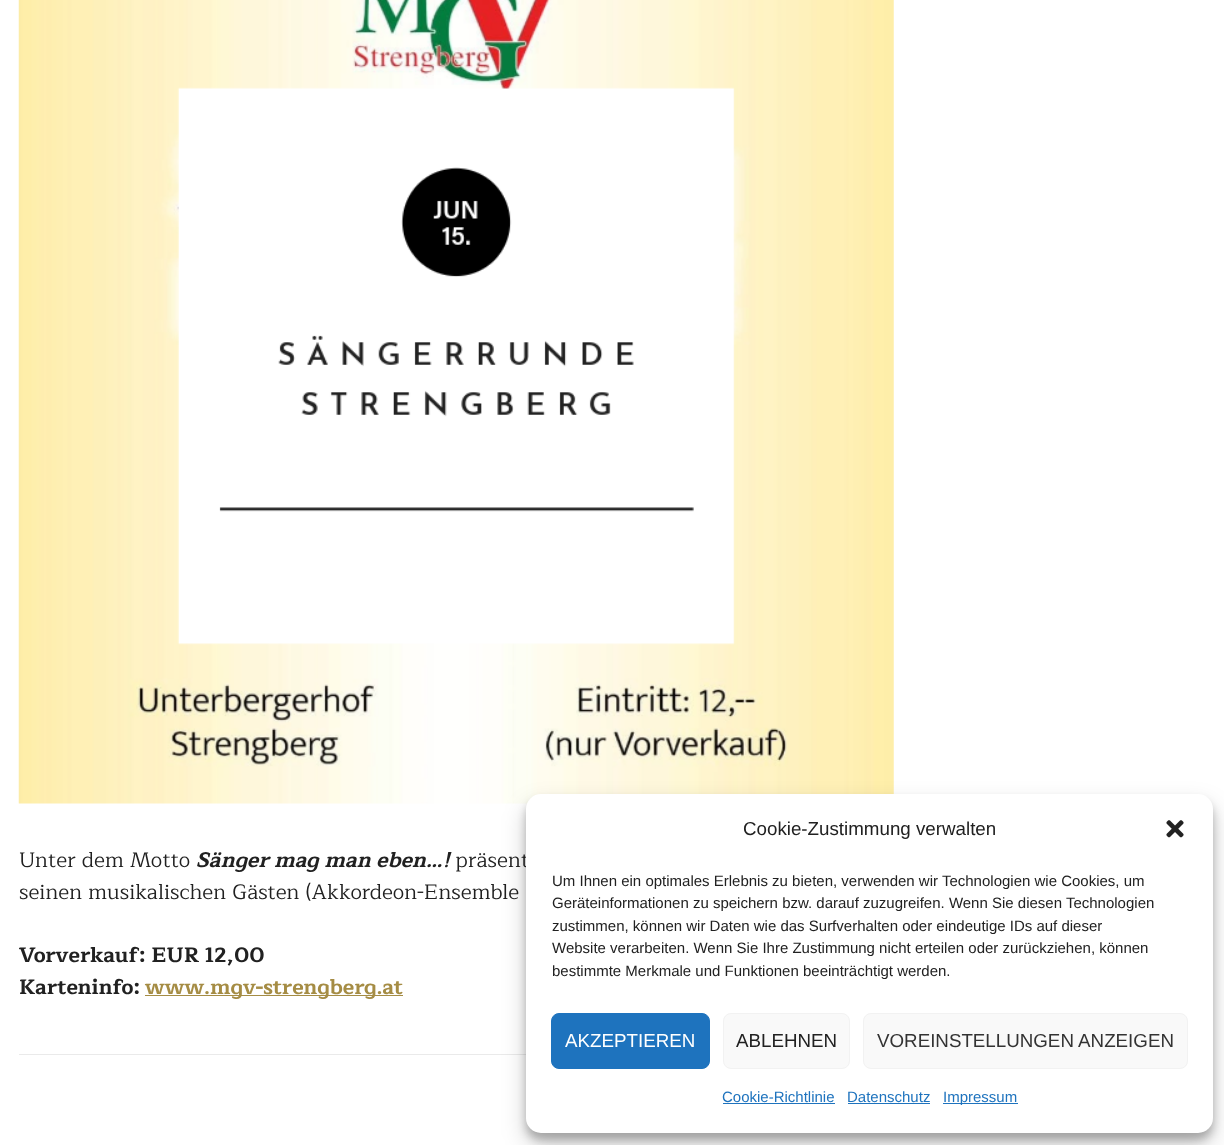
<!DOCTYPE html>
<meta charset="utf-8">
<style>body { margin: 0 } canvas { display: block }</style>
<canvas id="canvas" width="1224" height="1145"></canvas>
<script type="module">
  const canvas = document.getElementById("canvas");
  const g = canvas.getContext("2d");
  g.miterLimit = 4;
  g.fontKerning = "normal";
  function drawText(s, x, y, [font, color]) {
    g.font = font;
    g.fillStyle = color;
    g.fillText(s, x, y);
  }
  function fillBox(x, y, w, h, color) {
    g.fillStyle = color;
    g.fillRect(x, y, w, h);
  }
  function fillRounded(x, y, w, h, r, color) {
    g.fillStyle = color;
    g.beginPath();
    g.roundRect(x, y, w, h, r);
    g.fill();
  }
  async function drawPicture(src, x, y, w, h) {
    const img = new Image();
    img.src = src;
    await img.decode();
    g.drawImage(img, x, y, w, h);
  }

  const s1 = ["21px Maitree", "#212121"];
  const s2 = ["italic bold 21px Maitree", "#212121"];
  const s3 = ["bold 21px Maitree", "#212121"];
  const s4 = ["bold 21px Maitree", "#A58C44"];
  const s5 = ["18.75px Liberation Sans", "#212121"];
  const s6 = ["15px Liberation Sans", "#212121"];
  const s7 = ["18.75px Liberation Sans", "#FFFFFF"];
  const s8 = ["18.75px Liberation Sans", "#333333"];
  const s9 = ["15px Liberation Sans", "#1E73BE"];

  fillBox(0, 0, 1224, 1145, "#FFFFFF");
  await drawPicture("pic1.png", 18, 0, 876, 804);
  drawText("Unter dem Motto", 19, 867, s1);
  drawText("Sänger mag man eben…!", 196, 867, s2);
  drawText("präsent", 455, 867, s1);
  drawText("seinen musikalischen Gästen (Akkordeon-Ensemble", 19, 899, s1);
  drawText("Vorverkauf: EUR 12,00", 19, 962, s3);
  drawText("Karteninfo:", 19, 994, s3);
  fillBox(145, 995, 258, 1, "#A58C44");
  drawText("www.mgv-strengberg.at", 145, 994, s4);
  fillBox(19, 1054, 507, 1, "#EAEAEA");
  g.fillStyle = "rgba(0, 0, 0, 0.23)";
  g.filter = "blur(4px)";
  g.beginPath();
  g.roundRect(526, 801, 687, 339, 15);
  g.fill();
  g.filter = "none";
  g.fillStyle = "rgba(0, 0, 0, 0.19)";
  g.filter = "blur(12.5px)";
  g.beginPath();
  g.roundRect(526, 806, 687, 339, 15);
  g.fill();
  g.filter = "none";
  fillRounded(526, 794, 687, 339, 15, "#FFFFFF");
  drawText("Cookie-Zustimmung verwalten", 743, 835, s5);
  await drawPicture("pic2.png", 1166, 820, 18, 18);
  drawText("Um Ihnen ein optimales Erlebnis zu bieten, verwenden wir Technologien wie Cookies, um", 552, 886, s6);
  drawText("Geräteinformationen zu speichern bzw. darauf zuzugreifen. Wenn Sie diesen Technologien", 552, 908, s6);
  drawText("zustimmen, können wir Daten wie das Surfverhalten oder eindeutige IDs auf dieser", 552, 931, s6);
  drawText("Website verarbeiten. Wenn Sie Ihre Zustimmung nicht erteilen oder zurückziehen, können", 552, 953, s6);
  drawText("bestimmte Merkmale und Funktionen beeinträchtigt werden.", 552, 976, s6);
  g.fillStyle = "#1E73BE";
  g.beginPath();
  g.roundRect(551.5, 1013.5, 158, 55, 7.5);
  g.fill();
  g.strokeStyle = "#1E73BE";
  g.stroke();
  drawText("AKZEPTIEREN", 565, 1047, s7);
  g.fillStyle = "#F9F9F9";
  g.beginPath();
  g.roundRect(723.5, 1013.5, 126, 55, 7.5);
  g.fill();
  g.strokeStyle = "#F2F2F2";
  g.stroke();
  drawText("ABLEHNEN", 736, 1047, s5);
  g.fillStyle = "#F9F9F9";
  g.beginPath();
  g.roundRect(863.5, 1013.5, 324, 55, 7.5);
  g.fill();
  g.stroke();
  drawText("VOREINSTELLUNGEN ANZEIGEN", 877, 1047, s8);
  drawText("Cookie-Richtlinie", 722, 1102, s9);
  fillBox(723, 1103, 112, 1, "#1E73BE");
  drawText("Datenschutz", 847, 1102, s9);
  fillBox(848, 1103, 82, 1, "#1E73BE");
  fillBox(943, 1103, 75, 1, "#1E73BE");
  drawText("Impressum", 943, 1102, s9);
</script>
